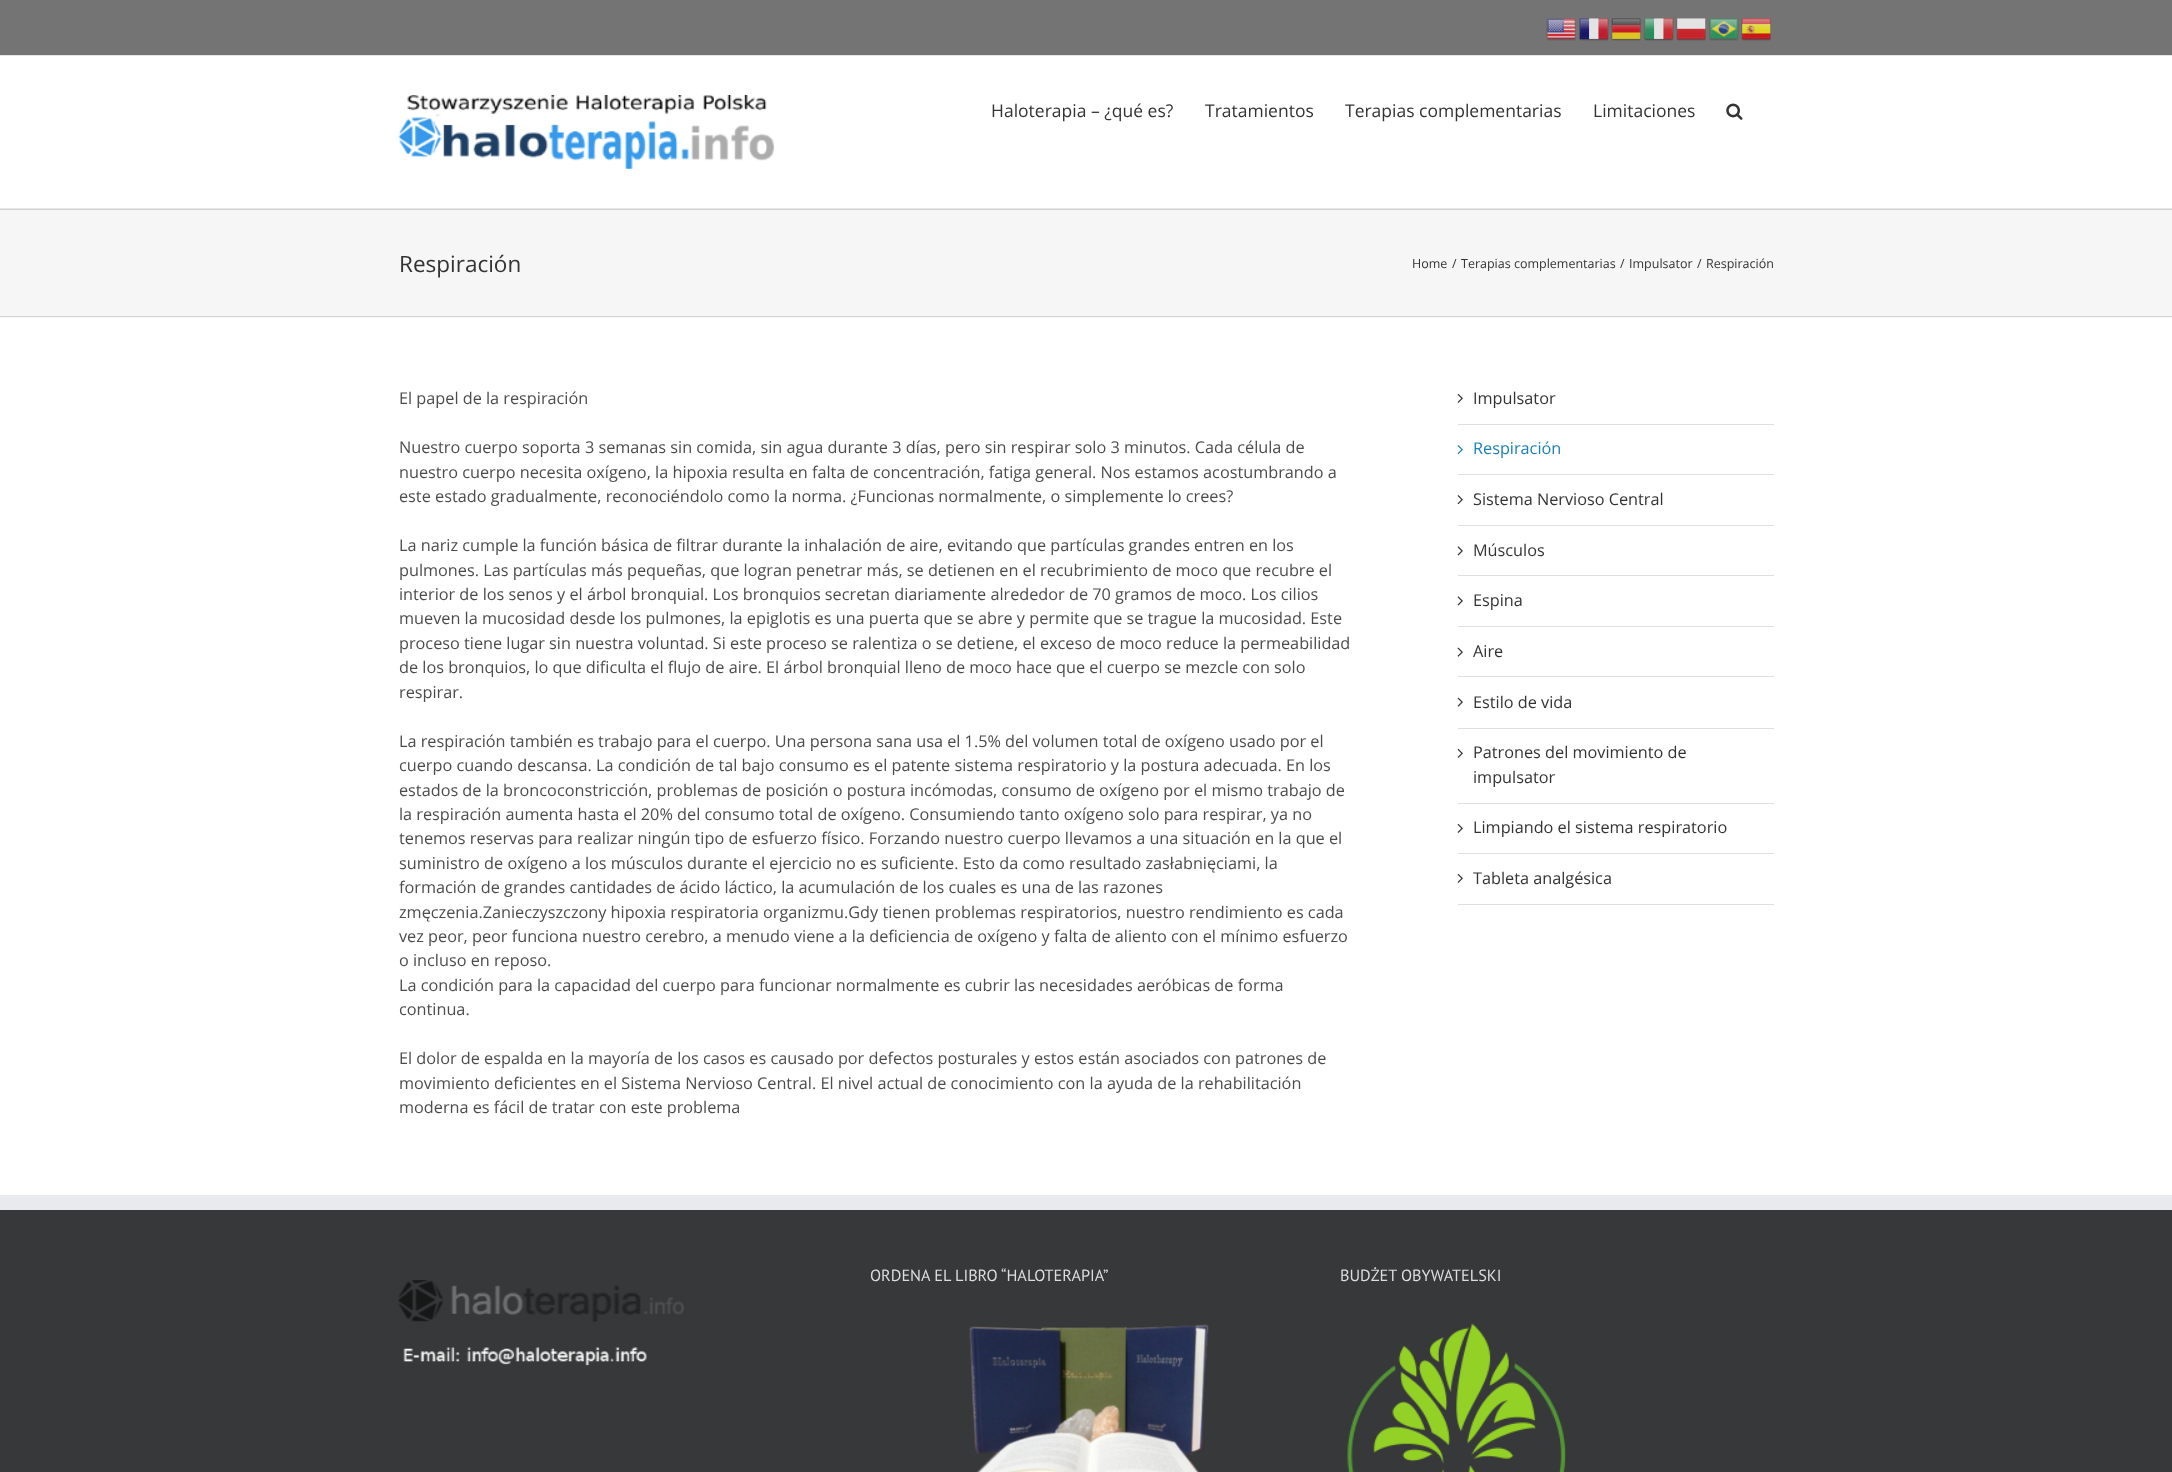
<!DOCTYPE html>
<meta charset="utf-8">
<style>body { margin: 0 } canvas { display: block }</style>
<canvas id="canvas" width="2172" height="1472"></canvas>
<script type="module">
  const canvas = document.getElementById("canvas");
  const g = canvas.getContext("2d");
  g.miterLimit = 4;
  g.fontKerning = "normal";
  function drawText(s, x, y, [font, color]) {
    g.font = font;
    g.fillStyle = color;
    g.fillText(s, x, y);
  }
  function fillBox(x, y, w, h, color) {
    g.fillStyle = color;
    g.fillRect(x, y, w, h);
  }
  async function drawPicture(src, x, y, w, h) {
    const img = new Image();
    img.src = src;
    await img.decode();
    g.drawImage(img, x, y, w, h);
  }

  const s1 = ["17.5px Open Sans", "#333333"];
  const s2 = ["22.5px Open Sans", "#333333"];
  const s3 = ["12.5px Open Sans", "#333333"];
  const s4 = ["16.25px Open Sans", "#4C4C4C"];
  const s5 = ["16.25px Liberation Serif", "#4C4C4C"];
  const s6 = ["16.25px Open Sans", "#333333"];
  const s7 = ["16.25px Open Sans", "#1A80B6"];
  const s8 = ["16.25px PT Sans", "#DDDDDD"];

  fillBox(0, 0, 2172, 1472, "#FFFFFF");
  fillBox(0, 0, 2172, 55, "#747474");
  fillBox(0, 55, 2172, 1, "#E5E5E5");
  await drawPicture("pic1.png", 1546, 18, 30, 23);
  await drawPicture("pic2.png", 1579, 18, 30, 23);
  await drawPicture("pic3.png", 1611, 18, 30, 23);
  await drawPicture("pic4.png", 1644, 18, 30, 23);
  await drawPicture("pic5.png", 1676, 18, 30, 23);
  await drawPicture("pic6.png", 1709, 18, 30, 23);
  await drawPicture("pic7.png", 1741, 18, 30, 23);
  fillBox(0, 208, 2172, 1, "#E5E5E5");
  await drawPicture("pic8.png", 398, 95, 376, 74);
  drawText("Haloterapia – ¿qué es?", 991, 117, s1);
  drawText("Tratamientos", 1205, 117, s1);
  drawText("Terapias complementarias", 1345, 117, s1);
  drawText("Limitaciones", 1593, 117, s1);
  await drawPicture("pic9.png", 1726, 103, 17, 17);
  fillBox(0, 210, 2172, 108, "#F6F6F6");
  fillBox(0, 209, 2172, 1, "#D2D3D4");
  fillBox(0, 316, 2172, 1, "#D2D3D4");
  drawText("Respiración", 399, 272, s2);
  drawText("Home", 1412, 268, s3);
  drawText("/", 1452, 268, s3);
  drawText("Terapias complementarias", 1461, 268, s3);
  drawText("/", 1620, 268, s3);
  drawText("Impulsator", 1629, 268, s3);
  drawText("/", 1697, 268, s3);
  drawText("Respiración", 1706, 268, s3);
  drawText("El papel de la respiración", 399, 404, s4);
  drawText("Nuestro cuerpo soporta 3 semanas sin comida, sin agua durante 3 días, pero sin respirar solo 3 minutos. Cada célula de", 399, 453, s4);
  drawText("nuestro cuerpo necesita oxígeno, la hipoxia resulta en falta de concentración, fatiga general. Nos estamos acostumbrando a", 399, 478, s4);
  drawText("este estado gradualmente, reconociéndolo como la norma. ¿Funcionas normalmente, o simplemente lo crees?", 399, 502, s4);
  drawText("￼", 1237, 502, s5);
  drawText("La nariz cumple la función básica de filtrar durante la inhalación de aire, evitando que partículas grandes entren en los", 399, 551, s4);
  drawText("pulmones. Las partículas más pequeñas, que logran penetrar más, se detienen en el recubrimiento de moco que recubre el", 399, 576, s4);
  drawText("interior de los senos y el árbol bronquial. Los bronquios secretan diariamente alrededor de 70 gramos de moco. Los cilios", 399, 600, s4);
  drawText("mueven la mucosidad desde los pulmones, la epiglotis es una puerta que se abre y permite que se trague la mucosidad. Este", 399, 624, s4);
  drawText("proceso tiene lugar sin nuestra voluntad. Si este proceso se ralentiza o se detiene, el exceso de moco reduce la permeabilidad", 399, 649, s4);
  drawText("de los bronquios, lo que dificulta el flujo de aire. El árbol bronquial lleno de moco hace que el cuerpo se mezcle con solo", 399, 673, s4);
  drawText("respirar.", 399, 698, s4);
  drawText("La respiración también es trabajo para el cuerpo. Una persona sana usa el 1.5% del volumen total de oxígeno usado por el", 399, 747, s4);
  drawText("cuerpo cuando descansa. La condición de tal bajo consumo es el patente sistema respiratorio y la postura adecuada. En los", 399, 771, s4);
  drawText("estados de la broncoconstricción, problemas de posición o postura incómodas, consumo de oxígeno por el mismo trabajo de", 399, 796, s4);
  drawText("la respiración aumenta hasta el 20% del consumo total de oxígeno. Consumiendo tanto oxígeno solo para respirar, ya no", 399, 820, s4);
  drawText("tenemos reservas para realizar ningún tipo de esfuerzo físico. Forzando nuestro cuerpo llevamos a una situación en la que el", 399, 844, s4);
  drawText("suministro de oxígeno a los músculos durante el ejercicio no es suficiente. Esto da como resultado zasłabnięciami, la", 399, 869, s4);
  drawText("formación de grandes cantidades de ácido láctico, la acumulación de los cuales es una de las razones", 399, 893, s4);
  drawText("zmęczenia.Zanieczyszczony hipoxia respiratoria organizmu.Gdy tienen problemas respiratorios, nuestro rendimiento es cada", 399, 918, s4);
  drawText("vez peor, peor funciona nuestro cerebro, a menudo viene a la deficiencia de oxígeno y falta de aliento con el mínimo esfuerzo", 399, 942, s4);
  drawText("o incluso en reposo.", 399, 966, s4);
  drawText("La condición para la capacidad del cuerpo para funcionar normalmente es cubrir las necesidades aeróbicas de forma", 399, 991, s4);
  drawText("continua.", 399, 1015, s4);
  drawText("El dolor de espalda en la mayoría de los casos es causado por defectos posturales y estos están asociados con patrones de", 399, 1064, s4);
  drawText("movimiento deficientes en el Sistema Nervioso Central. El nivel actual de conocimiento con la ayuda de la rehabilitación", 399, 1089, s4);
  drawText("moderna es fácil de tratar con este problema", 399, 1113, s4);
  fillBox(1458, 424, 316, 1, "#E0DEDE");
  await drawPicture("pic10.png", 1457, 393, 6, 10);
  drawText("Impulsator", 1473, 404, s6);
  fillBox(1458, 474, 316, 1, "#E0DEDE");
  await drawPicture("pic11.png", 1457, 445, 6, 10);
  drawText("Respiración", 1473, 454, s7);
  fillBox(1458, 525, 316, 1, "#E0DEDE");
  await drawPicture("pic12.png", 1457, 495, 6, 10);
  drawText("Sistema Nervioso Central", 1473, 505, s6);
  fillBox(1458, 575, 316, 1, "#E0DEDE");
  await drawPicture("pic13.png", 1457, 546, 6, 10);
  drawText("Músculos", 1473, 556, s6);
  fillBox(1458, 626, 316, 1, "#E0DEDE");
  await drawPicture("pic13.png", 1457, 596, 6, 10);
  drawText("Espina", 1473, 606, s6);
  fillBox(1458, 676, 316, 1, "#E0DEDE");
  await drawPicture("pic14.png", 1457, 647, 6, 10);
  drawText("Aire", 1473, 657, s6);
  fillBox(1458, 728, 316, 1, "#E0DEDE");
  await drawPicture("pic14.png", 1457, 697, 6, 10);
  drawText("Estilo de vida", 1473, 708, s6);
  fillBox(1458, 803, 316, 1, "#E0DEDE");
  await drawPicture("pic10.png", 1457, 748, 6, 10);
  drawText("Patrones del movimiento de", 1473, 758, s6);
  drawText("impulsator", 1473, 783, s6);
  fillBox(1458, 853, 316, 1, "#E0DEDE");
  await drawPicture("pic10.png", 1457, 823, 6, 10);
  drawText("Limpiando el sistema respiratorio", 1473, 833, s6);
  fillBox(1458, 904, 316, 1, "#E0DEDE");
  await drawPicture("pic10.png", 1457, 873, 6, 10);
  drawText("Tableta analgésica", 1473, 884, s6);
  fillBox(0, 1210, 2172, 262, "#363839");
  fillBox(0, 1195, 2172, 15, "#E9EAEE");
  drawText("ORDENA EL LIBRO “HALOTERAPIA”", 870, 1281, s8);
  await drawPicture("pic15.png", 969, 1324, 240, 148);
  drawText("BUDŻET OBYWATELSKI", 1340, 1281, s8);
  await drawPicture("pic16.png", 1347, 1323, 219, 149);
  await drawPicture("pic17.png", 398, 1280, 286, 42);
  await drawPicture("pic18.png", 403, 1347, 244, 19);
</script>
